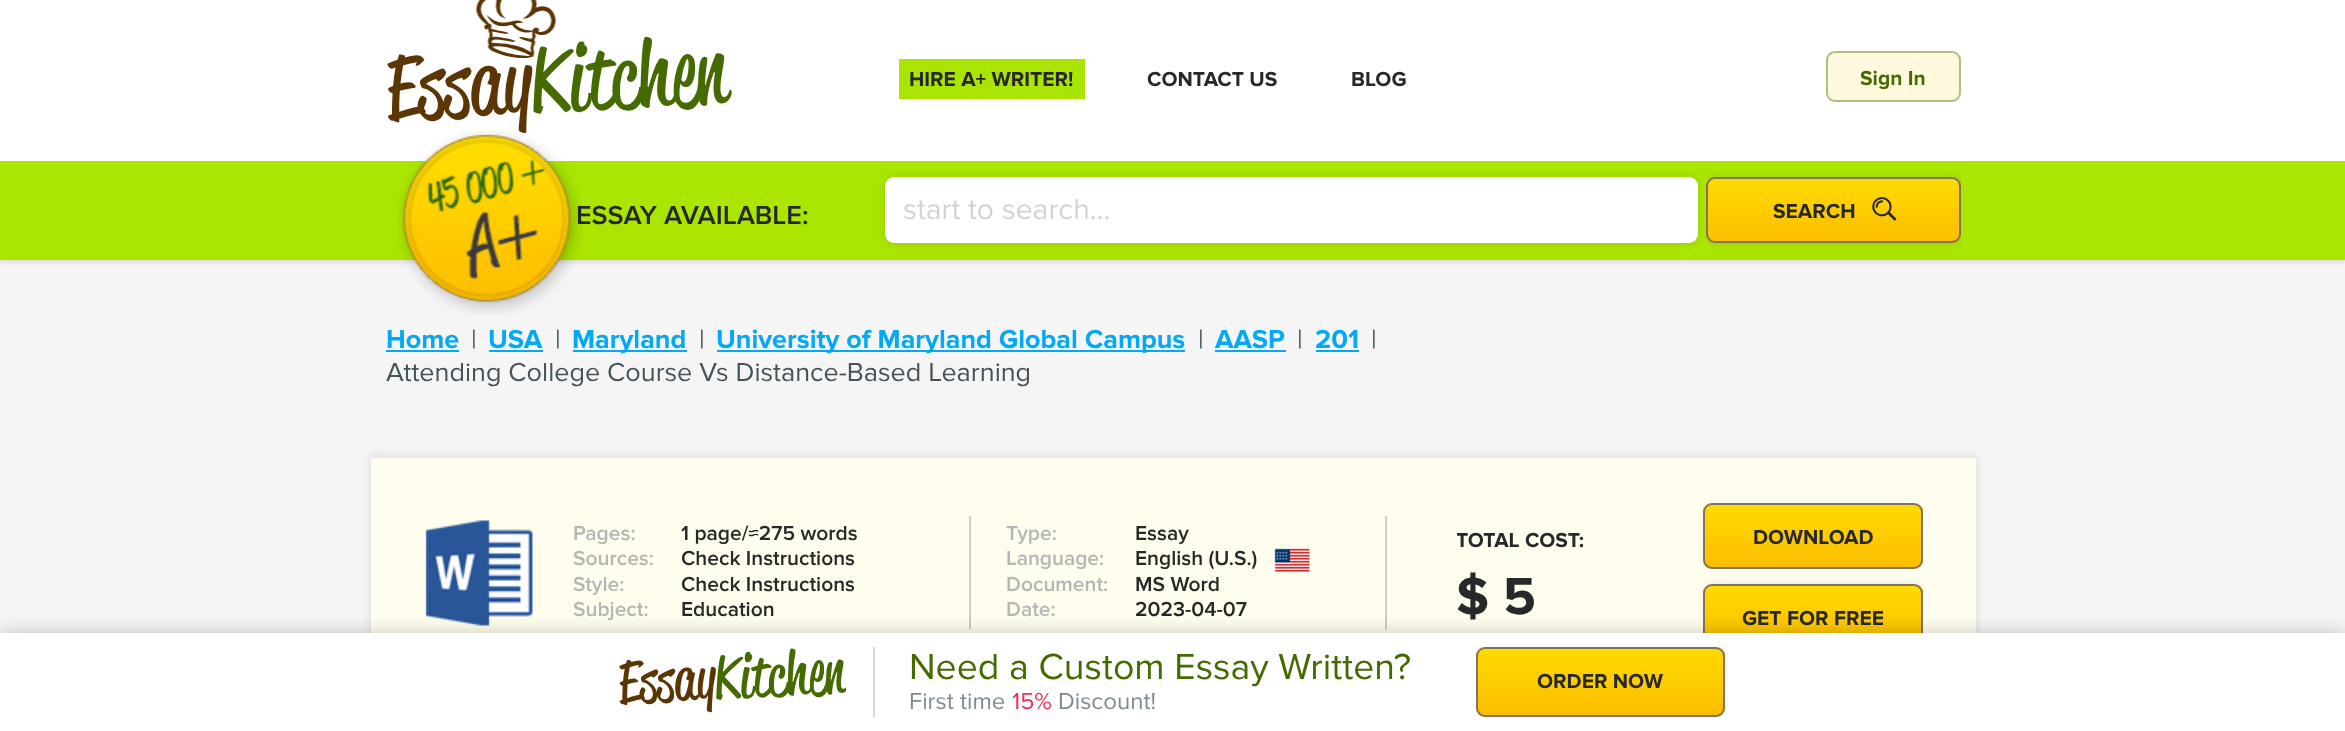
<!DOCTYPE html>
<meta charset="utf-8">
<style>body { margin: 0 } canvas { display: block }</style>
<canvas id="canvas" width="2345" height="731"></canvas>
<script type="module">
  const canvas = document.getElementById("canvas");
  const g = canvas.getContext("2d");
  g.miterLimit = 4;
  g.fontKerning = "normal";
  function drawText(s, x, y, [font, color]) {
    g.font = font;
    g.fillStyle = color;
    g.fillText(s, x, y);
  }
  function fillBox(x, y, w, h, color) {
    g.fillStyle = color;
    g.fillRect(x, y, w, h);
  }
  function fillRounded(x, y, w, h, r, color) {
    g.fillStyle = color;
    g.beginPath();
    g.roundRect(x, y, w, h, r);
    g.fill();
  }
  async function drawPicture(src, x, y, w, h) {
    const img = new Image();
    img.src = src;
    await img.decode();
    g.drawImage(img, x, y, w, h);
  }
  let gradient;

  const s1 = ["bold 21px Proxima Nova", "#282828"];
  const s2 = ["bold 21px Proxima Nova", "#456B00"];
  const s3 = ["600 27px Proxima Nova", "#282828"];
  const s4 = ["30px Proxima Nova", "#D4D3D1"];
  const s5 = ["bold 27px Proxima Nova", "#03A9F4"];
  const s6 = ["27px Proxima Nova", "#45535B"];
  const s7 = ["600 21px Proxima Nova", "#B6B6B6"];
  const s8 = ["600 21px Proxima Nova", "#282828"];
  const s9 = ["bold 54px Proxima Nova", "#282828"];
  const s10 = ["37.5px Proxima Nova", "#456B00"];
  const s11 = ["24px Proxima Nova", "#80898D"];
  const s12 = ["24px Proxima Nova", "#F72D53"];

  fillBox(0, 0, 2345, 731, "#F5F5F5");
  g.fillStyle = "rgba(0, 0, 0, 0.09)";
  g.filter = "blur(2px)";
  g.beginPath();
  g.rect(0, 164, 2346, 99);
  g.fill();
  g.filter = "none";
  fillBox(0, 0, 2345, 161, "#FFFFFF");
  g.font = "90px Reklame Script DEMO";
  g.fillStyle = "#5C3504";
  g.save();
  g.translate(387, 119);
  g.rotate(-3 * Math.PI / 180);
  g.fillText("Essay", 0, 0);
  g.restore();
  g.fillStyle = "#456B00";
  g.save();
  g.translate(533, 111);
  g.rotate(-3 * Math.PI / 180);
  g.fillText("Kitchen", 0, 0);
  g.restore();
  await drawPicture("pic1.png", 476, 0, 81, 58);
  fillBox(899, 59, 186, 40, "#A9E500");
  drawText("HIRE A+ WRITER!", 909, 86, s1);
  drawText("СONTACT US", 1147, 86, s1);
  drawText("BLOG", 1351, 86, s1);
  fillRounded(1826, 51, 135, 51, 9, "#FFFADE");
  g.beginPath();
  g.roundRect(1827, 52, 133, 49, 8);
  g.strokeStyle = "rgba(69, 107, 0, 0.42)";
  g.lineWidth = 2;
  g.stroke();
  drawText("Sign In", 1860, 85, s2);
  fillBox(0, 161, 2345, 99, "#AAE600");
  drawText("ESSAY AVAILABLE:", 576, 224, s3);
  await drawPicture("pic2.png", 397, 130, 185, 185);
  g.fillStyle = "rgba(0, 0, 0, 0.13)";
  g.filter = "blur(4px)";
  g.beginPath();
  g.roundRect(885, 177, 813, 66, 9);
  g.fill();
  g.filter = "none";
  fillRounded(885, 177, 813, 66, 9, "#FFFFFF");
  drawText("start to search...", 903, 219, s4);
  g.save();
  g.beginPath();
  g.rect(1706, 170, 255, 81);
  g.clip();
  g.fillStyle = "rgba(0, 0, 0, 0.1)";
  g.filter = "blur(4px)";
  g.beginPath();
  g.roundRect(1706, 177, 255, 66, 9);
  g.fill();
  g.filter = "none";
  g.restore();
  g.save();
  g.beginPath();
  g.roundRect(1706, 177, 255, 66, 9);
  g.clip();
  gradient = g.createLinearGradient(1833, 242, 1833, 179);
  gradient.addColorStop(0, "#FCBD00");
  gradient.addColorStop(1, "#FFDB00");
  g.fillStyle = gradient;
  g.fillRect(1706, 179, 255, 63);
  g.restore();
  await drawPicture("pic3.png", 1872, 197, 25, 24);
  g.beginPath();
  g.roundRect(1707, 178, 253, 64, 8);
  g.strokeStyle = "#83725D";
  g.stroke();
  drawText("SEARCH", 1773, 218, s1);
  drawText("Home", 386, 348, s5);
  fillBox(386, 350, 73, 2, "#03A9F4");
  drawText("|", 471, 348, s6);
  drawText("USA", 488, 348, s5);
  fillBox(489, 350, 54, 2, "#03A9F4");
  drawText("|", 555, 348, s6);
  fillBox(573, 350, 114, 2, "#03A9F4");
  drawText("Maryland", 572, 348, s5);
  drawText("|", 699, 348, s6);
  fillBox(717, 350, 468, 2, "#03A9F4");
  drawText("University of Maryland Global Campus", 716, 348, s5);
  drawText("|", 1198, 348, s6);
  drawText("AASP", 1215, 348, s5);
  fillBox(1215, 350, 71, 2, "#03A9F4");
  drawText("|", 1297, 348, s6);
  drawText("201", 1315, 348, s5);
  fillBox(1316, 350, 43, 2, "#03A9F4");
  drawText("|", 1371, 348, s6);
  drawText("Attending College Course Vs Distance-Based Learning", 386, 381, s6);
  g.fillStyle = "rgba(0, 0, 0, 0.11)";
  g.filter = "blur(5px)";
  g.beginPath();
  g.rect(371, 456, 1605, 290);
  g.fill();
  g.filter = "none";
  fillBox(371, 458, 1605, 175, "#FFFDED");
  fillBox(371, 456, 1605, 2, "#E9E9E9");
  await drawPicture("pic4.png", 425, 520, 108, 106);
  fillBox(1385, 516, 2, 114, "#D1CDC5");
  fillBox(969, 516, 2, 113, "#D1CDC5");
  drawText("Pages:", 573, 540, s7);
  drawText("1 page/≈275 words", 681, 540, s8);
  drawText("Sources:", 573, 565, s7);
  drawText("Check Instructions", 681, 565, s8);
  drawText("Style:", 573, 591, s7);
  drawText("Check Instructions", 681, 591, s8);
  drawText("Subject:", 573, 616, s7);
  drawText("Education", 681, 616, s8);
  drawText("Type:", 1006, 540, s7);
  drawText("Essay", 1135, 540, s8);
  drawText("Language:", 1006, 565, s7);
  drawText("English (U.S.)", 1135, 565, s8);
  await drawPicture("pic5.png", 1274, 548, 36, 24);
  drawText("Document:", 1006, 591, s7);
  drawText("MS Word", 1135, 591, s8);
  drawText("Date:", 1006, 616, s7);
  drawText("2023-04-07", 1135, 616, s8);
  g.save();
  g.beginPath();
  g.rect(1457, 528, 240, 26);
  g.clip();
  drawText("TOTAL COST:", 1456, 547, s1);
  g.restore();
  drawText("$ 5", 1456, 614, s9);
  g.save();
  g.beginPath();
  g.rect(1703, 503, 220, 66);
  g.clip();
  g.fillStyle = "rgba(0, 0, 0, 0.1)";
  g.filter = "blur(4px)";
  g.beginPath();
  g.roundRect(1703, 503, 220, 66, 9);
  g.fill();
  g.filter = "none";
  g.restore();
  g.save();
  g.beginPath();
  g.roundRect(1703, 503, 220, 66, 9);
  g.clip();
  gradient = g.createLinearGradient(1813, 567, 1813, 504);
  gradient.addColorStop(0, "#FCBD00");
  gradient.addColorStop(1, "#FFDB00");
  g.fillStyle = gradient;
  g.fillRect(1703, 504, 220, 63);
  g.restore();
  g.beginPath();
  g.roundRect(1704, 504, 218, 64, 8);
  g.stroke();
  drawText("DOWNLOAD", 1753, 544, s1);
  g.save();
  g.beginPath();
  g.rect(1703, 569, 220, 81);
  g.clip();
  g.fillStyle = "rgba(0, 0, 0, 0.1)";
  g.filter = "blur(4px)";
  g.beginPath();
  g.roundRect(1703, 584, 220, 66, 9);
  g.fill();
  g.filter = "none";
  g.restore();
  g.save();
  g.beginPath();
  g.roundRect(1703, 584, 220, 66, 9);
  g.clip();
  gradient = g.createLinearGradient(1813, 648, 1813, 585);
  gradient.addColorStop(0, "#FCBD00");
  gradient.addColorStop(1, "#FFDB00");
  g.fillStyle = gradient;
  g.fillRect(1703, 585, 220, 48);
  g.restore();
  g.beginPath();
  g.roundRect(1704, 585, 218, 64, 8);
  g.stroke();
  drawText("GET FOR FREE", 1742, 625, s1);
  g.fillStyle = "rgba(0, 0, 0, 0.21)";
  g.filter = "blur(9px)";
  g.beginPath();
  g.rect(0, 633, 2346, 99);
  g.fill();
  g.filter = "none";
  fillBox(0, 633, 2345, 98, "#FFFFFF");
  fillBox(873, 647, 2, 70, "#D2D7D8");
  g.font = "60px Reklame Script DEMO";
  g.fillStyle = "#5C3504";
  g.save();
  g.translate(619, 703);
  g.rotate(-3 * Math.PI / 180);
  g.fillText("Essay", 0, 0);
  g.restore();
  g.save();
  g.beginPath();
  g.moveTo(616.5, 648);
  g.lineTo(843.5, 636);
  g.lineTo(847, 708);
  g.lineTo(620, 720);
  g.closePath();
  g.clip();
  g.fillStyle = "#456B00";
  g.save();
  g.translate(716, 698);
  g.rotate(-3 * Math.PI / 180);
  g.fillText("Kitchen", 0, 0);
  g.restore();
  g.restore();
  drawText("Need a Custom Essay Written?", 909, 679, s10);
  drawText("First time", 909, 709, s11);
  drawText("15%", 1012, 709, s12);
  drawText("Discount!", 1058, 709, s11);
  g.save();
  g.beginPath();
  g.rect(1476, 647, 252, 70);
  g.clip();
  g.fillStyle = "rgba(0, 0, 0, 0.1)";
  g.filter = "blur(4px)";
  g.beginPath();
  g.roundRect(1476, 647, 249, 70, 9);
  g.fill();
  g.filter = "none";
  g.restore();
  g.save();
  g.beginPath();
  g.roundRect(1476, 647, 249, 70, 9);
  g.clip();
  gradient = g.createLinearGradient(1601, 716, 1601, 648);
  gradient.addColorStop(0, "#FCBD00");
  gradient.addColorStop(1, "#FFDB00");
  g.fillStyle = gradient;
  g.fillRect(1476, 648, 249, 68);
  g.restore();
  g.beginPath();
  g.roundRect(1477, 648, 247, 68, 8);
  g.stroke();
  drawText("ORDER NOW", 1537, 688, s1);
</script>
